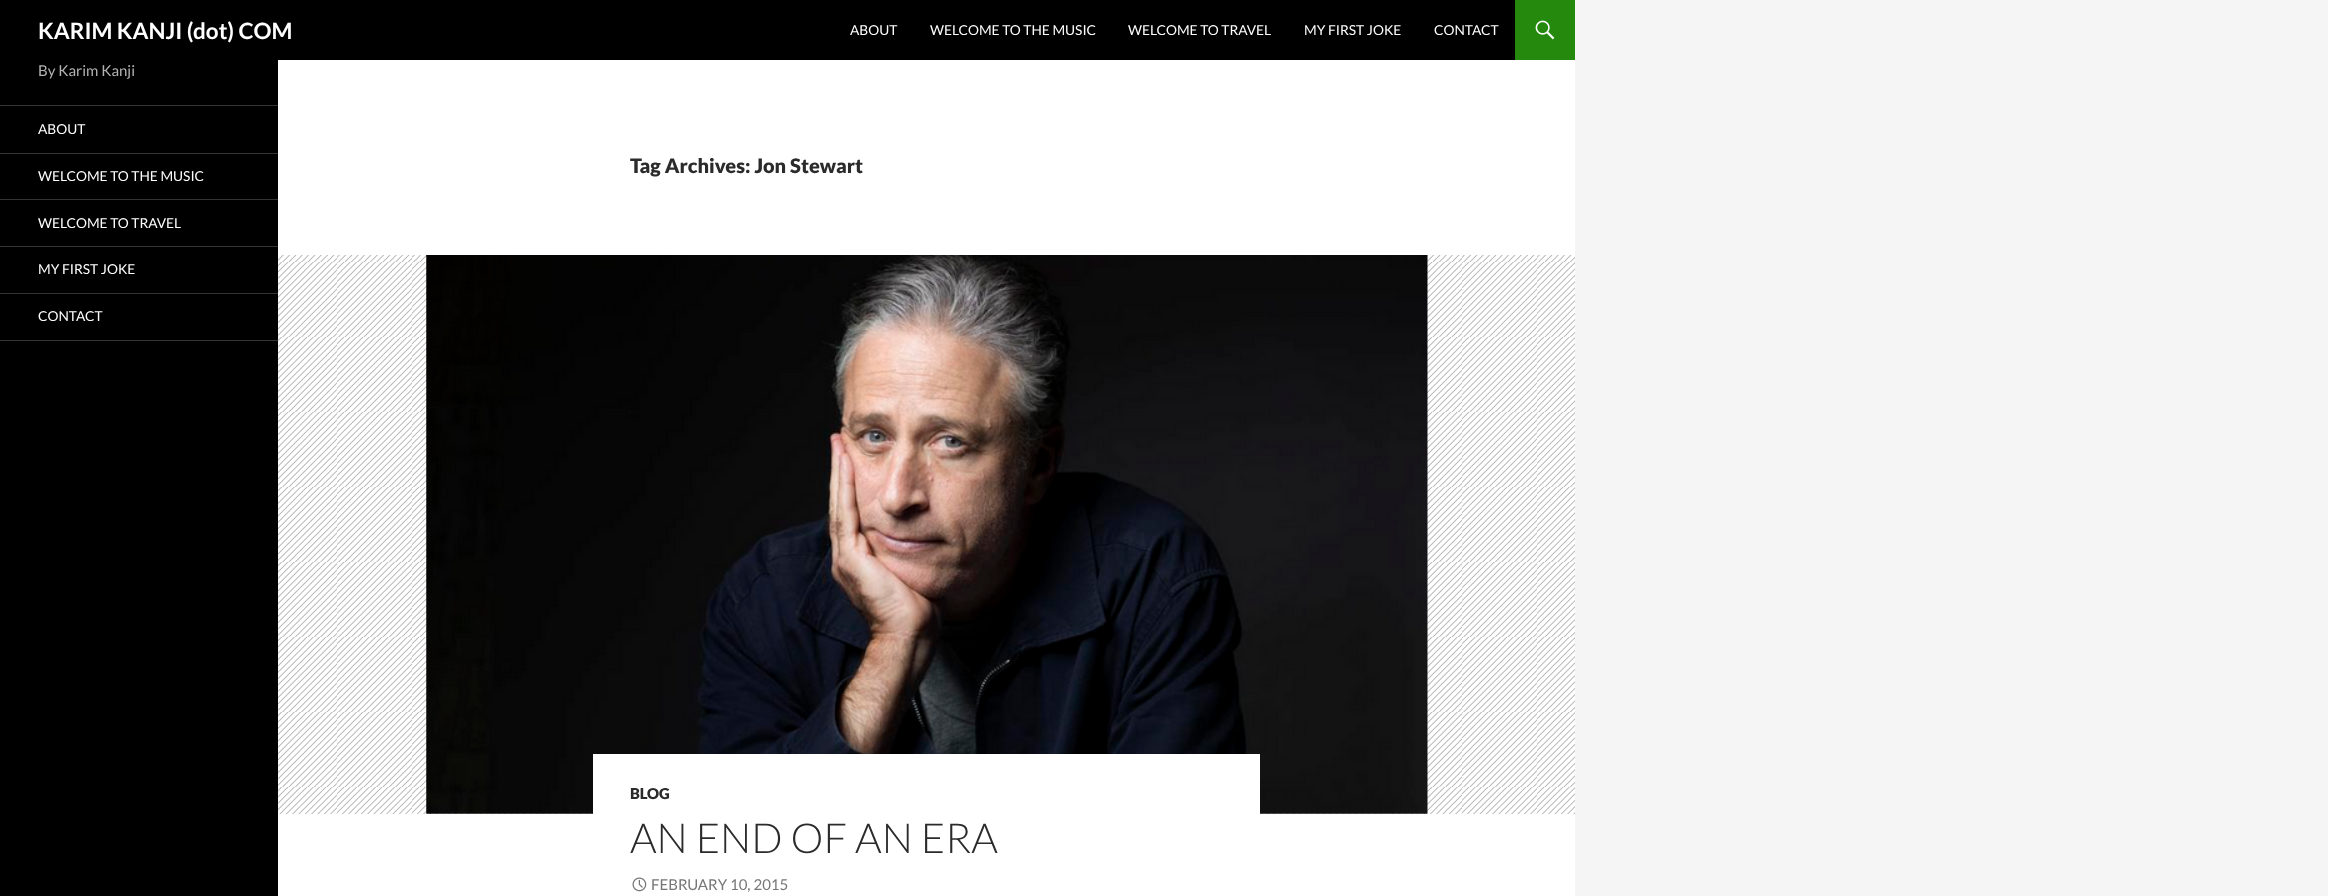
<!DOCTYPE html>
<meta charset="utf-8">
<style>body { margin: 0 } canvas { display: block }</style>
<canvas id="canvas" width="2328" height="896"></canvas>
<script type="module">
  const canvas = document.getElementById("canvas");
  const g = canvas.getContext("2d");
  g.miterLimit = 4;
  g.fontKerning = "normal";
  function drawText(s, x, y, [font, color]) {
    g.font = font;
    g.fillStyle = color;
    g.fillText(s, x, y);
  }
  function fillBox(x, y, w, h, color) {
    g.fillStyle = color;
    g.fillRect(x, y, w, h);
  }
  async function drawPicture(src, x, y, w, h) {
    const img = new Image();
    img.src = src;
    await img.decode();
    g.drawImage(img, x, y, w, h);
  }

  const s1 = ["bold 22.5px Lato", "#FFFFFF"];
  const s2 = ["13.75px Lato", "#FFFFFF"];
  const s3 = ["15px Lato", "#B3B3B3"];
  const s4 = ["900 20px Lato", "#2B2B2B"];
  const s5 = ["900 15px Lato", "#2B2B2B"];
  const s6 = ["300 41.25px Lato", "#2B2B2B"];
  const s7 = ["15px Lato", "#767676"];

  fillBox(0, 0, 2328, 896, "#F5F5F5");
  fillBox(278, 60, 1297, 836, "#FFFFFF");
  fillBox(0, 0, 1515, 60, "#000000");
  drawText("KARIM KANJI (dot) COM", 38, 39, s1);
  drawText("ABOUT", 850, 35, s2);
  drawText("WELCOME TO THE MUSIC", 930, 35, s2);
  drawText("WELCOME TO TRAVEL", 1128, 35, s2);
  drawText("MY FIRST JOKE", 1304, 35, s2);
  drawText("CONTACT", 1434, 35, s2);
  fillBox(1515, 0, 60, 60, "#24890D");
  await drawPicture("pic1.png", 1535, 20, 20, 20);
  fillBox(0, 60, 278, 836, "#000000");
  drawText("By Karim Kanji", 38, 76, s3);
  fillBox(0, 340, 278, 1, "#333333");
  fillBox(0, 105, 278, 1, "#333333");
  drawText("ABOUT", 38, 134, s2);
  fillBox(0, 153, 278, 1, "#333333");
  drawText("WELCOME TO THE MUSIC", 38, 181, s2);
  fillBox(0, 199, 278, 1, "#333333");
  drawText("WELCOME TO TRAVEL", 38, 228, s2);
  fillBox(0, 246, 278, 1, "#333333");
  drawText("MY FIRST JOKE", 38, 274, s2);
  fillBox(0, 293, 278, 1, "#333333");
  drawText("CONTACT", 38, 321, s2);
  drawText("Tag Archives: Jon Stewart", 630, 173, s4);
  fillBox(278, 255, 1297, 559, "#B2B2B2");
  await drawPicture("pic2.png", 278, 255, 1297, 559);
  await drawPicture("pic3.png", 426, 255, 1002, 559);
  fillBox(593, 754, 667, 60, "#FFFFFF");
  drawText("BLOG", 630, 799, s5);
  drawText("AN END OF AN ERA", 630, 853, s6);
  await drawPicture("pic4.png", 632, 877, 15, 15);
  drawText("FEBRUARY 10, 2015", 651, 890, s7);
</script>
